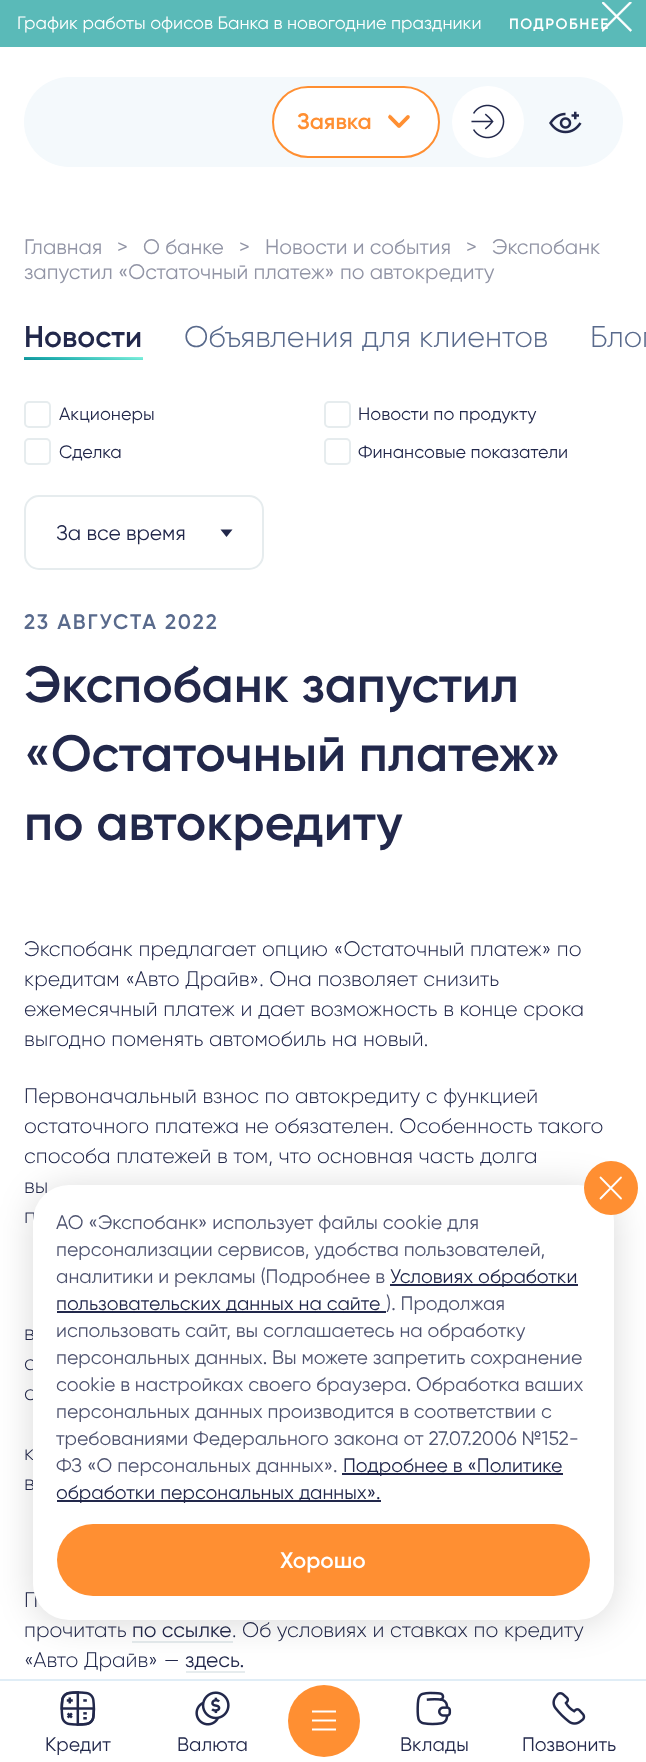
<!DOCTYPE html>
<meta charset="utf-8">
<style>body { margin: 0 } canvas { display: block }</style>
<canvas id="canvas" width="646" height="1762"></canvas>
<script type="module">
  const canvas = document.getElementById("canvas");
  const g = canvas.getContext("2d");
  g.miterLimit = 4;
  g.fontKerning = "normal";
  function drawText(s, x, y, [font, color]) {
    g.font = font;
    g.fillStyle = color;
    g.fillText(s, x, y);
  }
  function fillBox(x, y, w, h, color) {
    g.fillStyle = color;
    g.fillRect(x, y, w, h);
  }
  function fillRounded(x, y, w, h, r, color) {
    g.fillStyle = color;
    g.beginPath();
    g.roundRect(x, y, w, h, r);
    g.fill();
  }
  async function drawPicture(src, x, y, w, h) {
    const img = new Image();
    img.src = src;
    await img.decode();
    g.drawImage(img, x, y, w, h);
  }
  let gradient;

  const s1 = ["18px Gilroy", "#FFFFFF"];
  const s2 = ["600 15px Gilroy", "#FFFFFF"];
  const s3 = ["600 22.5px Gilroy", "#FF8F32"];
  const s4 = ["21px Gilroy", "#9194A5"];
  const s5 = ["600 30px Gilroy", "#22284B"];
  const s6 = ["300 30px Gilroy", "#596A8C"];
  const s7 = ["18px Gilroy", "#22284B"];
  const s8 = ["21px Gilroy", "#22284B"];
  const s9 = ["600 21px Gilroy", "#596A8C"];
  const s10 = ["600 51px Gilroy", "#22284B"];
  const s11 = ["300 21px Gilroy", "#22284B"];
  const s12 = ["19.5px Gilroy", "#4E536F"];
  const s13 = ["19.5px Gilroy", "#22284B"];
  const s14 = ["600 22.5px Gilroy", "#FFFFFF"];

  fillBox(0, 0, 646, 1762, "#FFFFFF");
  fillBox(0, 0, 646, 47, "#5ABAB8");
  drawText("График работы офисов Банка в новогодние праздники", 17, 29, s1);
  g.letterSpacing = "1.5px";
  drawText("ПОДРОБНЕЕ", 509, 29, s2);
  await drawPicture("pic1.png", 602, 2, 30, 30);
  fillRounded(24, 77, 599, 90, 45, "#F4F9FC");
  g.fillStyle = "#FFFFFF";
  g.beginPath();
  g.roundRect(273, 87, 166, 70, 35);
  g.fill();
  g.strokeStyle = "#FF8F32";
  g.lineWidth = 2;
  g.stroke();
  g.letterSpacing = "0px";
  drawText("Заявка", 297, 129, s3);
  await drawPicture("pic2.png", 388, 114, 22, 14);
  g.fillStyle = "#FFFFFF";
  g.beginPath();
  g.arc(488, 122, 36, 0, Math.PI * 2);
  g.fill();
  await drawPicture("pic3.png", 471, 104, 34, 35);
  await drawPicture("pic4.png", 549, 111, 33, 23);
  drawText("Главная", 24, 254, s4);
  drawText(">", 117, 254, s4);
  drawText("О банке", 143, 254, s4);
  drawText(">", 239, 254, s4);
  drawText("Новости и события", 265, 254, s4);
  drawText(">", 466, 254, s4);
  drawText("Экспобанк", 492, 254, s4);
  drawText("запустил «Остаточный платеж» по автокредиту", 24, 279, s4);
  drawText("Новости", 24, 347, s5);
  gradient = g.createLinearGradient(82, 368, 84, 349);
  gradient.addColorStop(0, "#067F8C");
  gradient.addColorStop(0.34, "#23B0B0");
  gradient.addColorStop(0.88, "#80F1DD");
  g.fillStyle = gradient;
  g.fillRect(24, 357, 119, 3);
  drawText("Объявления для клиентов", 184, 347, s6);
  drawText("Блог", 590, 347, s6);
  g.beginPath();
  g.roundRect(25, 402, 25, 25, 4);
  g.strokeStyle = "#E6ECEE";
  g.stroke();
  drawText("Акционеры", 59, 420, s7);
  g.beginPath();
  g.roundRect(325, 402, 25, 25, 4);
  g.stroke();
  drawText("Новости по продукту", 358, 420, s7);
  g.beginPath();
  g.roundRect(25, 439, 25, 25, 4);
  g.stroke();
  drawText("Сделка", 59, 458, s7);
  g.beginPath();
  g.roundRect(325, 439, 25, 25, 4);
  g.stroke();
  drawText("Финансовые показатели", 358, 458, s7);
  g.beginPath();
  g.roundRect(25, 496, 238, 73, 14);
  g.stroke();
  drawText("За все время", 56, 540, s8);
  g.beginPath();
  g.moveTo(220.5, 529.5);
  g.lineTo(232.5, 529.5);
  g.lineTo(226.5, 537);
  g.closePath();
  g.fill();
  g.letterSpacing = "1.9px";
  drawText("23 АВГУСТА 2022", 24, 629, s9);
  g.letterSpacing = "0px";
  drawText("Экспобанк запустил", 24, 702, s10);
  drawText("«Остаточный платеж»", 24, 771, s10);
  drawText("по автокредиту", 24, 840, s10);
  drawText("Экспобанк предлагает опцию «Остаточный платеж» по", 24, 956, s11);
  drawText("кредитам «Авто Драйв». Она позволяет снизить", 24, 986, s11);
  drawText("ежемесячный платеж и дает возможность в конце срока", 24, 1016, s11);
  drawText("выгодно поменять автомобиль на новый.", 24, 1046, s11);
  drawText("Первоначальный взнос по автокредиту с функцией", 24, 1103, s11);
  drawText("остаточного платежа не обязателен. Особенность такого", 24, 1133, s11);
  drawText("способа платежей в том, что основная часть долга", 24, 1163, s11);
  drawText("вы", 24, 1193, s11);
  drawText("п", 24, 1223, s11);
  drawText("в", 24, 1340, s11);
  drawText("с", 24, 1370, s11);
  drawText("о", 24, 1400, s11);
  drawText("к", 24, 1460, s11);
  drawText("в", 24, 1490, s11);
  drawText("П", 24, 1607, s11);
  drawText("прочитать", 24, 1637, s11);
  drawText("по ссылке", 132, 1637, s8);
  fillBox(132, 1641, 101, 2, "#E6ECEE");
  drawText(". Об условиях и ставках по кредиту", 232, 1637, s11);
  drawText("«Авто Драйв» —", 24, 1667, s11);
  drawText("здесь.", 185, 1667, s8);
  fillBox(186, 1671, 59, 2, "#E6ECEE");
  g.fillStyle = "rgba(0, 0, 0, 0.15)";
  g.filter = "blur(18px)";
  g.beginPath();
  g.roundRect(33, 1188, 581, 435, 36);
  g.fill();
  g.filter = "none";
  fillRounded(33, 1185, 581, 435, 36, "#FFFFFF");
  g.fillStyle = "#FF8F32";
  g.beginPath();
  g.arc(611, 1188, 27, 0, Math.PI * 2);
  g.fill();
  g.beginPath();
  g.moveTo(621, 1198.5);
  g.lineTo(600.5, 1177.5);
  g.moveTo(600.5, 1198.5);
  g.lineTo(621, 1177.5);
  g.strokeStyle = "#FFFFFF";
  g.lineWidth = 1.8;
  g.lineCap = "round";
  g.stroke();
  drawText("АО «Экспобанк» использует файлы cookie для", 56, 1229, s12);
  drawText("персонализации сервисов, удобства пользователей,", 56, 1256, s12);
  drawText("аналитики и рекламы (Подробнее в", 56, 1283, s12);
  fillBox(390, 1284, 188, 2, "#22284B");
  drawText("Условиях обработки", 390, 1283, s13);
  fillBox(57, 1311, 329, 2, "#22284B");
  drawText("пользовательских данных на сайте", 56, 1310, s13);
  drawText("). Продолжая", 386, 1310, s12);
  drawText("использовать сайт, вы соглашаетесь на обработку", 56, 1337, s12);
  drawText("персональных данных. Вы можете запретить сохранение", 56, 1364, s12);
  drawText("cookie в настройках своего браузера. Обработка ваших", 56, 1391, s12);
  drawText("персональных данных производится в соответствии с", 56, 1418, s12);
  drawText("требованиями Федерального закона от 27.07.2006 №152-", 56, 1445, s12);
  drawText("ФЗ «О персональных данных».", 56, 1472, s12);
  fillBox(342, 1473, 221, 2, "#22284B");
  drawText("Подробнее в «Политике", 343, 1472, s13);
  fillBox(57, 1500, 324, 2, "#22284B");
  drawText("обработки персональных данных».", 56, 1499, s13);
  fillRounded(57, 1524, 533, 72, 36, "#FF8F32");
  drawText("Хорошо", 280, 1568, s14);
  fillBox(0, 1679, 646, 2, "#E0EDF6");
  await drawPicture("pic5.png", 60, 1691, 36, 35);
  drawText("Кредит", 45, 1751, s13);
  await drawPicture("pic6.png", 195, 1691, 35, 35);
  drawText("Валюта", 177, 1751, s13);
  g.fillStyle = "#FF8F32";
  g.beginPath();
  g.arc(324, 1721, 36, 0, Math.PI * 2);
  g.fill();
  g.beginPath();
  g.moveTo(312, 1711.5);
  g.lineTo(336, 1711.5);
  g.moveTo(312, 1720.5);
  g.lineTo(336, 1720.5);
  g.moveTo(312, 1729.5);
  g.lineTo(336, 1729.5);
  g.lineWidth = 2.2;
  g.lineCap = "butt";
  g.stroke();
  await drawPicture("pic7.png", 416, 1691, 36, 35);
  drawText("Вклады", 400, 1751, s13);
  await drawPicture("pic8.png", 552, 1692, 34, 33);
  drawText("Позвонить", 522, 1751, s13);
</script>
